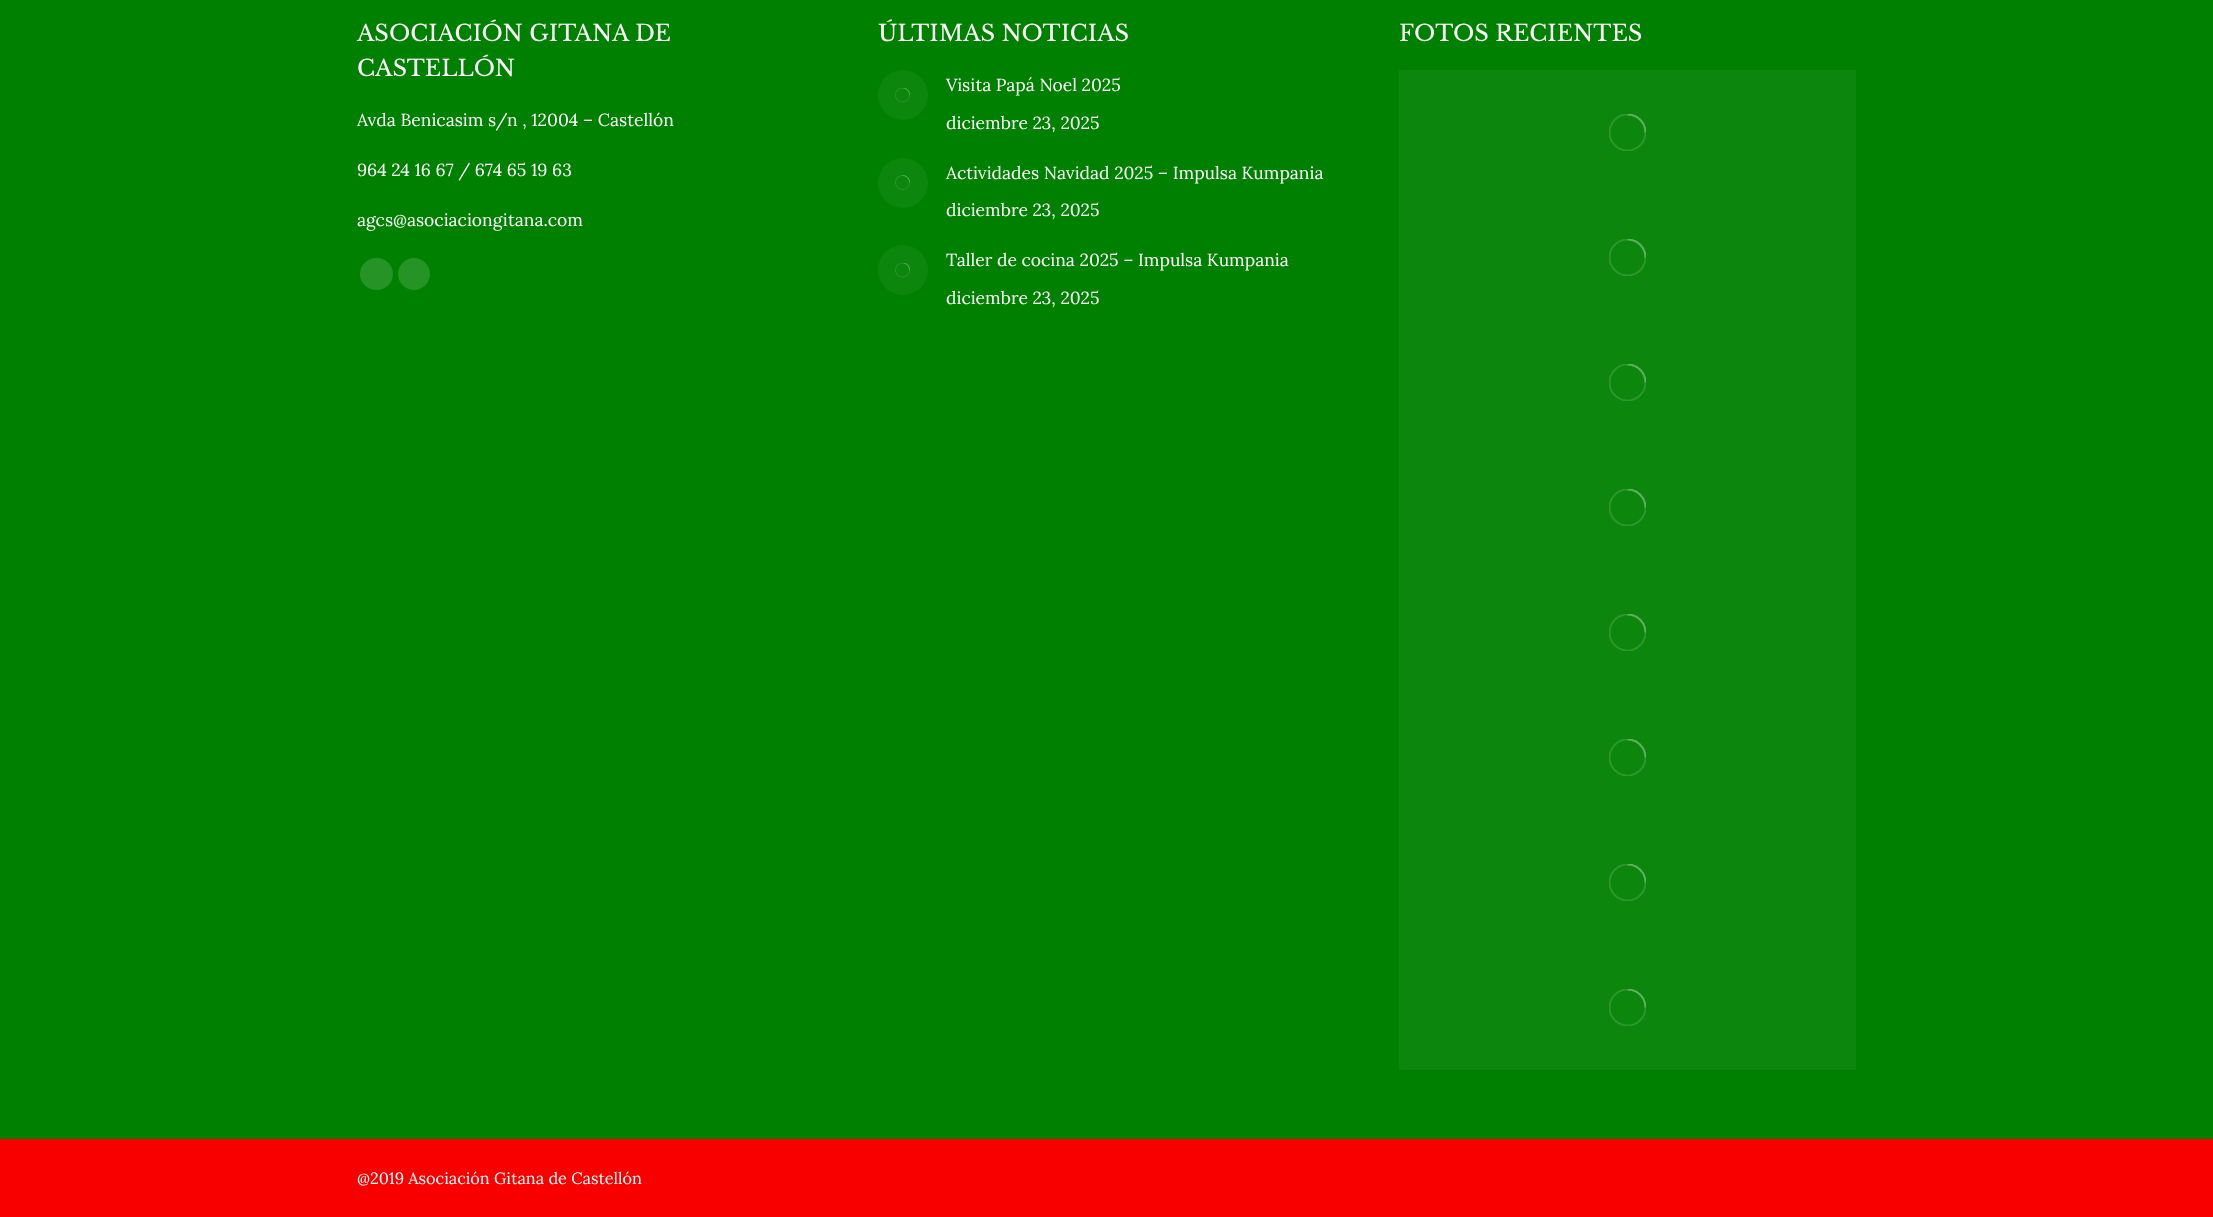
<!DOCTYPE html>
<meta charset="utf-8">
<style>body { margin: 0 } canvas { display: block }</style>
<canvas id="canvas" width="2213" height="1217"></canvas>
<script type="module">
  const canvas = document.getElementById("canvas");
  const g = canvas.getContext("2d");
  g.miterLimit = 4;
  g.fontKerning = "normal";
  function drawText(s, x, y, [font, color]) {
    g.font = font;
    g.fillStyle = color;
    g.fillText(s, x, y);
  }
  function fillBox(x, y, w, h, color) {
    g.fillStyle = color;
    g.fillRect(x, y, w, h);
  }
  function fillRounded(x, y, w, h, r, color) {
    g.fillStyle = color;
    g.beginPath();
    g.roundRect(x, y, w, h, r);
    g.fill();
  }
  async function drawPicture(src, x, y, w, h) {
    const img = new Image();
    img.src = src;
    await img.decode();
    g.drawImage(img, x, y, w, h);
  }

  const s1 = ["22.5px Libre Baskerville", "#FFFFFF"];
  const s2 = ["17.5px Lora", "#FFFFFF"];
  const s3 = ["16.25px Lora", "#FFFFFF"];

  fillBox(0, 0, 2213, 1217, "#008001");
  drawText("ASOCIACIÓN GITANA DE", 357, 41, s1);
  drawText("CASTELLÓN", 357, 76, s1);
  drawText("Avda Benicasim s/n , 12004 – Castellón", 357, 126, s2);
  drawText("964 24 16 67 / 674 65 19 63", 357, 176, s2);
  drawText("agcs@asociaciongitana.com", 357, 226, s2);
  fillRounded(360, 258, 33, 32, 16, "#269327");
  g.beginPath();
  g.arc(414, 274, 16, 0, Math.PI * 2);
  g.fill();
  drawText("ÚLTIMAS NOTICIAS", 878, 41, s1);
  g.fillStyle = "#0D860E";
  g.beginPath();
  g.arc(903, 95, 25, 0, Math.PI * 2);
  g.fill();
  await drawPicture("pic1.png", 895, 88, 15, 15);
  drawText("Visita Papá Noel 2025", 946, 91, s2);
  drawText("diciembre 23, 2025", 946, 129, s2);
  g.fillStyle = "#0D860E";
  g.beginPath();
  g.arc(903, 183, 25, 0, Math.PI * 2);
  g.fill();
  await drawPicture("pic2.png", 895, 175, 15, 15);
  drawText("Actividades Navidad 2025 – Impulsa Kumpania", 946, 179, s2);
  drawText("diciembre 23, 2025", 946, 216, s2);
  g.fillStyle = "#0D860E";
  g.beginPath();
  g.arc(903, 270, 25, 0, Math.PI * 2);
  g.fill();
  await drawPicture("pic1.png", 895, 263, 15, 15);
  drawText("Taller de cocina 2025 – Impulsa Kumpania", 946, 266, s2);
  drawText("diciembre 23, 2025", 946, 304, s2);
  drawText("FOTOS RECIENTES", 1399, 41, s1);
  fillBox(1399, 70, 457, 1000, "#0D860E");
  g.save();
  g.beginPath();
  g.rect(1609, 114, 37, 37);
  g.clip();
  g.beginPath();
  g.arc(1627.5, 132.5, 18, 0, Math.PI * 2);
  g.strokeStyle = "#2E972F";
  g.lineWidth = 2;
  g.stroke();
  g.beginPath();
  g.moveTo(1645.5, 132.5);
  g.bezierCurveTo(1645.5, 122.5, 1637.5, 114.5, 1627.5, 114.5);
  g.strokeStyle = "rgba(255, 255, 255, 0.25)";
  g.stroke();
  g.restore();
  g.save();
  g.beginPath();
  g.rect(1609, 239, 37, 37);
  g.clip();
  g.beginPath();
  g.arc(1627.5, 257.5, 18, 0, Math.PI * 2);
  g.strokeStyle = "#2E972F";
  g.lineWidth = 2;
  g.stroke();
  g.beginPath();
  g.moveTo(1645.5, 257.5);
  g.bezierCurveTo(1645.5, 247.5, 1637.5, 239.5, 1627.5, 239.5);
  g.strokeStyle = "rgba(255, 255, 255, 0.25)";
  g.stroke();
  g.restore();
  g.save();
  g.beginPath();
  g.rect(1609, 364, 37, 37);
  g.clip();
  g.beginPath();
  g.arc(1627.5, 382.5, 18, 0, Math.PI * 2);
  g.strokeStyle = "#2E972F";
  g.lineWidth = 2;
  g.stroke();
  g.beginPath();
  g.moveTo(1645.5, 382.5);
  g.bezierCurveTo(1645.5, 372.5, 1637.5, 364.5, 1627.5, 364.5);
  g.strokeStyle = "rgba(255, 255, 255, 0.25)";
  g.stroke();
  g.restore();
  g.save();
  g.beginPath();
  g.rect(1609, 489, 37, 37);
  g.clip();
  g.beginPath();
  g.arc(1627.5, 507.5, 18, 0, Math.PI * 2);
  g.strokeStyle = "#2E972F";
  g.lineWidth = 2;
  g.stroke();
  g.beginPath();
  g.moveTo(1645.5, 507.5);
  g.bezierCurveTo(1645.5, 497.5, 1637.5, 489.5, 1627.5, 489.5);
  g.strokeStyle = "rgba(255, 255, 255, 0.25)";
  g.stroke();
  g.restore();
  g.save();
  g.beginPath();
  g.rect(1609, 614, 37, 37);
  g.clip();
  g.beginPath();
  g.arc(1627.5, 632.5, 18, 0, Math.PI * 2);
  g.strokeStyle = "#2E972F";
  g.lineWidth = 2;
  g.stroke();
  g.beginPath();
  g.moveTo(1645.5, 632.5);
  g.bezierCurveTo(1645.5, 622.5, 1637.5, 614.5, 1627.5, 614.5);
  g.strokeStyle = "rgba(255, 255, 255, 0.25)";
  g.stroke();
  g.restore();
  g.save();
  g.beginPath();
  g.rect(1609, 739, 37, 37);
  g.clip();
  g.beginPath();
  g.arc(1627.5, 757.5, 18, 0, Math.PI * 2);
  g.strokeStyle = "#2E972F";
  g.lineWidth = 2;
  g.stroke();
  g.beginPath();
  g.moveTo(1645.5, 757.5);
  g.bezierCurveTo(1645.5, 747.5, 1637.5, 739.5, 1627.5, 739.5);
  g.strokeStyle = "rgba(255, 255, 255, 0.25)";
  g.stroke();
  g.restore();
  g.save();
  g.beginPath();
  g.rect(1609, 864, 37, 37);
  g.clip();
  g.beginPath();
  g.arc(1627.5, 882.5, 18, 0, Math.PI * 2);
  g.strokeStyle = "#2E972F";
  g.lineWidth = 2;
  g.stroke();
  g.beginPath();
  g.moveTo(1645.5, 882.5);
  g.bezierCurveTo(1645.5, 872.5, 1637.5, 864.5, 1627.5, 864.5);
  g.strokeStyle = "rgba(255, 255, 255, 0.25)";
  g.stroke();
  g.restore();
  g.save();
  g.beginPath();
  g.rect(1609, 989, 37, 37);
  g.clip();
  g.beginPath();
  g.arc(1627.5, 1007.5, 18, 0, Math.PI * 2);
  g.strokeStyle = "#2E972F";
  g.lineWidth = 2;
  g.stroke();
  g.beginPath();
  g.moveTo(1645.5, 1007.5);
  g.bezierCurveTo(1645.5, 997.5, 1637.5, 989.5, 1627.5, 989.5);
  g.strokeStyle = "rgba(255, 255, 255, 0.25)";
  g.stroke();
  g.restore();
  fillBox(0, 1139, 2213, 78, "#F80000");
  drawText("@2019 Asociación Gitana de Castellón", 357, 1184, s3);
</script>
